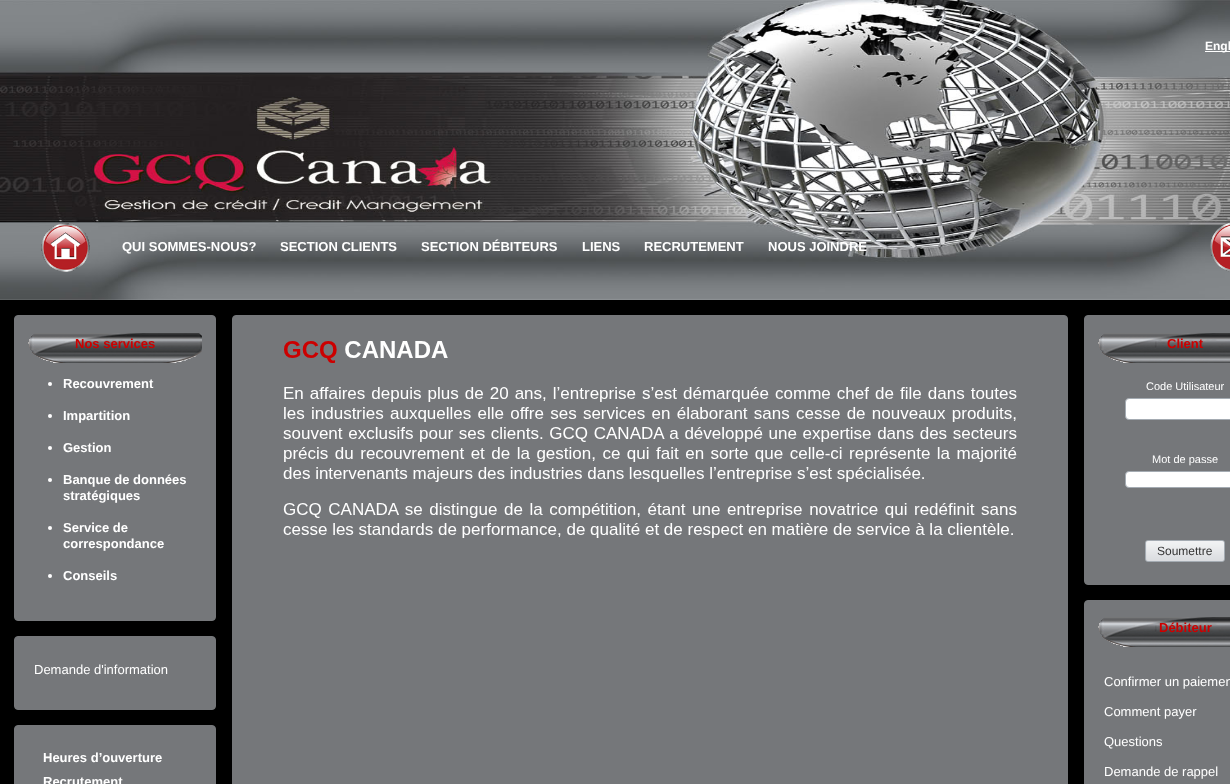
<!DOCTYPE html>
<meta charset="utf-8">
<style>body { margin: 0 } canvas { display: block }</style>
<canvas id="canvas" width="1230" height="784"></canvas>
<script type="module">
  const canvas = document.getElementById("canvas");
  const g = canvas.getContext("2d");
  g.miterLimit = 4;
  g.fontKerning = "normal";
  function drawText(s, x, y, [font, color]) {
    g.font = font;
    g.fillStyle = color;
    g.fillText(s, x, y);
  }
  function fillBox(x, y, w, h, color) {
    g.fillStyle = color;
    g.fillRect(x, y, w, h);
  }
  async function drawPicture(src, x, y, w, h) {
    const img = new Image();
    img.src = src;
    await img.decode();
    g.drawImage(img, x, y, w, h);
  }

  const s1 = ["bold 12px Liberation Sans", "#FFFFFF"];
  const s2 = ["bold 13px Liberation Sans", "#FFFFFF"];
  const s3 = ["bold 13px Liberation Sans", "#CC0000"];
  const s4 = ["13px Liberation Sans", "#FFFFFF"];
  const s5 = ["11px Liberation Sans", "#FFFFFF"];
  const s6 = ["12px Liberation Sans", "#333333"];

  fillBox(0, 0, 1230, 784, "#000000");
  await drawPicture("pic1.png", 0, 0, 1230, 300);
  fillBox(1205, 51, 25, 1, "#FFFFFF");
  drawText("Engl", 1205, 50, s1);
  await drawPicture("pic2.png", 41, 223, 49, 49);
  drawText("QUI SOMMES-NOUS?", 122, 251, s2);
  drawText("SECTION CLIENTS", 280, 251, s2);
  drawText("SECTION DÉBITEURS", 421, 251, s2);
  drawText("LIENS", 582, 251, s2);
  drawText("RECRUTEMENT", 644, 251, s2);
  drawText("NOUS JOINDRE", 768, 251, s2);
  await drawPicture("pic3.png", 1210, 222, 20, 50);
  g.fillStyle = "#75777A";
  g.beginPath();
  g.roundRect(14.5, 315.5, 201, 305, 3.5);
  g.fill();
  g.strokeStyle = "#75777A";
  g.stroke();
  await drawPicture("pic4.png", 28, 333, 174, 30);
  drawText("Nos services", 75, 348, s3);
  g.fillStyle = "#FFFFFF";
  g.beginPath();
  g.arc(50, 384, 2, 0, Math.PI * 2);
  g.fill();
  drawText("Recouvrement", 63, 388, s2);
  g.beginPath();
  g.arc(50, 416, 2, 0, Math.PI * 2);
  g.fill();
  drawText("Impartition", 63, 420, s2);
  g.beginPath();
  g.arc(50, 448, 2, 0, Math.PI * 2);
  g.fill();
  drawText("Gestion", 63, 452, s2);
  g.beginPath();
  g.arc(50, 480, 2, 0, Math.PI * 2);
  g.fill();
  drawText("Banque de données", 63, 484, s2);
  drawText("stratégiques", 63, 500, s2);
  g.beginPath();
  g.arc(50, 528, 2, 0, Math.PI * 2);
  g.fill();
  drawText("Service de", 63, 532, s2);
  drawText("correspondance", 63, 548, s2);
  g.beginPath();
  g.arc(50, 576, 2, 0, Math.PI * 2);
  g.fill();
  drawText("Conseils", 63, 580, s2);
  g.fillStyle = "#75777A";
  g.beginPath();
  g.roundRect(14.5, 636.5, 201, 73, 3.5);
  g.fill();
  g.stroke();
  drawText("Demande d'information", 34, 674, s4);
  g.fillStyle = "#75777A";
  g.beginPath();
  g.roundRect(14.5, 725.5, 201, 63, 3.5);
  g.fill();
  g.stroke();
  drawText("Heures d’ouverture", 43, 762, s2);
  drawText("Recrutement", 43, 786, s2);
  g.fillStyle = "#75777A";
  g.beginPath();
  g.roundRect(232.5, 315.5, 835, 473, 3.5);
  g.fill();
  g.stroke();
  await drawPicture("pic5.png", 283, 341, 734, 197);
  g.beginPath();
  g.roundRect(1084.5, 315.5, 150, 269, 3.5);
  g.fill();
  g.stroke();
  await drawPicture("pic6.png", 1098, 333, 132, 30);
  drawText("Client", 1167, 348, s3);
  drawText("Code Utilisateur", 1146, 390, s5);
  g.beginPath();
  g.roundRect(1125.5, 398.5, 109, 21, 3.5);
  g.fill();
  g.strokeStyle = "#A4ABB2";
  g.stroke();
  drawText("Mot de passe", 1152, 463, s5);
  g.beginPath();
  g.roundRect(1125.5, 471.5, 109, 16, 3.5);
  g.fill();
  g.stroke();
  await drawPicture("pic7.png", 1145, 540, 5, 22);
  await drawPicture("pic8.png", 1150, 540, 75, 22);
  drawText("Soumettre", 1157, 555, s6);
  g.fillStyle = "#75777A";
  g.beginPath();
  g.roundRect(1084.5, 600.5, 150, 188, 3.5);
  g.fill();
  g.strokeStyle = "#75777A";
  g.stroke();
  await drawPicture("pic6.png", 1098, 617, 132, 30);
  drawText("Débiteur", 1159, 632, s3);
  drawText("Confirmer un paiemen", 1104, 686, s4);
  drawText("Comment payer", 1104, 716, s4);
  drawText("Questions", 1104, 746, s4);
  drawText("Demande de rappel", 1104, 776, s4);
</script>
